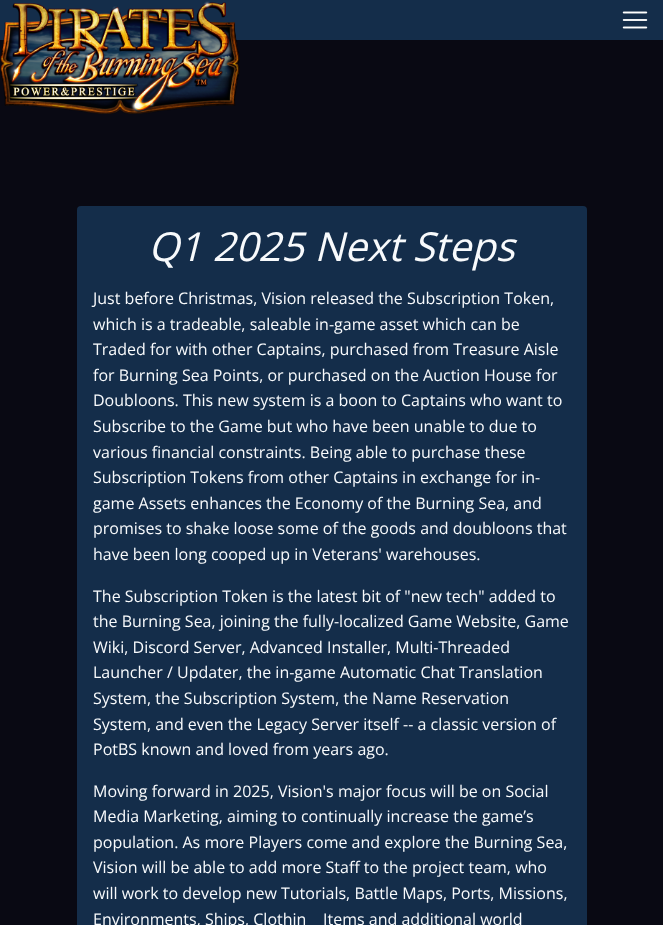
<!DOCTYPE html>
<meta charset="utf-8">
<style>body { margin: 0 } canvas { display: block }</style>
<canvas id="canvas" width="663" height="925"></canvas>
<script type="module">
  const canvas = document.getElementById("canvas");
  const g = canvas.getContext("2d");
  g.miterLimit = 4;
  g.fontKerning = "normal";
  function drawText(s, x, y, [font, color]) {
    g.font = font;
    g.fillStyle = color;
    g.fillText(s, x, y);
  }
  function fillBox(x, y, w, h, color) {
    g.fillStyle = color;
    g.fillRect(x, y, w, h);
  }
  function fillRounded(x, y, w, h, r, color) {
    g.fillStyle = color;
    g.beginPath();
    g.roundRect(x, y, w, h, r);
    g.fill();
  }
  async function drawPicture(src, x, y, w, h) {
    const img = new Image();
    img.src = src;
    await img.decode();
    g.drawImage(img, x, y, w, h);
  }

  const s1 = ["italic 40px Open Sans", "#F8FAFC"];
  const s2 = ["16px Open Sans", "#F8FAFC"];

  fillBox(0, 0, 663, 925, "#090913");
  fillBox(0, 0, 663, 40, "#142D4A");
  await drawPicture("pic1.png", 0, 1, 240, 113);
  await drawPicture("pic2.png", 622, 11, 26, 18);
  fillRounded(77, 206, 510, 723, 4, "#142D4A");
  drawText("Q1 2025 Next Steps", 148, 261, s1);
  drawText("Just before Christmas, Vision released the Subscription Token,", 93, 304, s2);
  drawText("which is a tradeable, saleable in-game asset which can be", 93, 330, s2);
  drawText("Traded for with other Captains, purchased from Treasure Aisle", 93, 355, s2);
  drawText("for Burning Sea Points, or purchased on the Auction House for", 93, 381, s2);
  drawText("Doubloons. This new system is a boon to Captains who want to", 93, 406, s2);
  drawText("Subscribe to the Game but who have been unable to due to", 93, 432, s2);
  drawText("various financial constraints. Being able to purchase these", 93, 458, s2);
  drawText("Subscription Tokens from other Captains in exchange for in-", 93, 483, s2);
  drawText("game Assets enhances the Economy of the Burning Sea, and", 93, 509, s2);
  drawText("promises to shake loose some of the goods and doubloons that", 93, 534, s2);
  drawText("have been long cooped up in Veterans' warehouses.", 93, 560, s2);
  drawText("The Subscription Token is the latest bit of \"new tech\" added to", 93, 602, s2);
  drawText("the Burning Sea, joining the fully-localized Game Website, Game", 93, 627, s2);
  drawText("Wiki, Discord Server, Advanced Installer, Multi-Threaded", 93, 653, s2);
  drawText("Launcher / Updater, the in-game Automatic Chat Translation", 93, 678, s2);
  drawText("System, the Subscription System, the Name Reservation", 93, 704, s2);
  drawText("System, and even the Legacy Server itself -- a classic version of", 93, 730, s2);
  drawText("PotBS known and loved from years ago.", 93, 755, s2);
  drawText("Moving forward in 2025, Vision's major focus will be on Social", 93, 797, s2);
  drawText("Media Marketing, aiming to continually increase the game’s", 93, 822, s2);
  drawText("population. As more Players come and explore the Burning Sea,", 93, 848, s2);
  drawText("Vision will be able to add more Staff to the project team, who", 93, 873, s2);
  drawText("will work to develop new Tutorials, Battle Maps, Ports, Missions,", 93, 899, s2);
  drawText("Environments, Ships, Clothin", 93, 925, s2);
  drawText("Items and additional world", 323, 925, s2);
</script>
